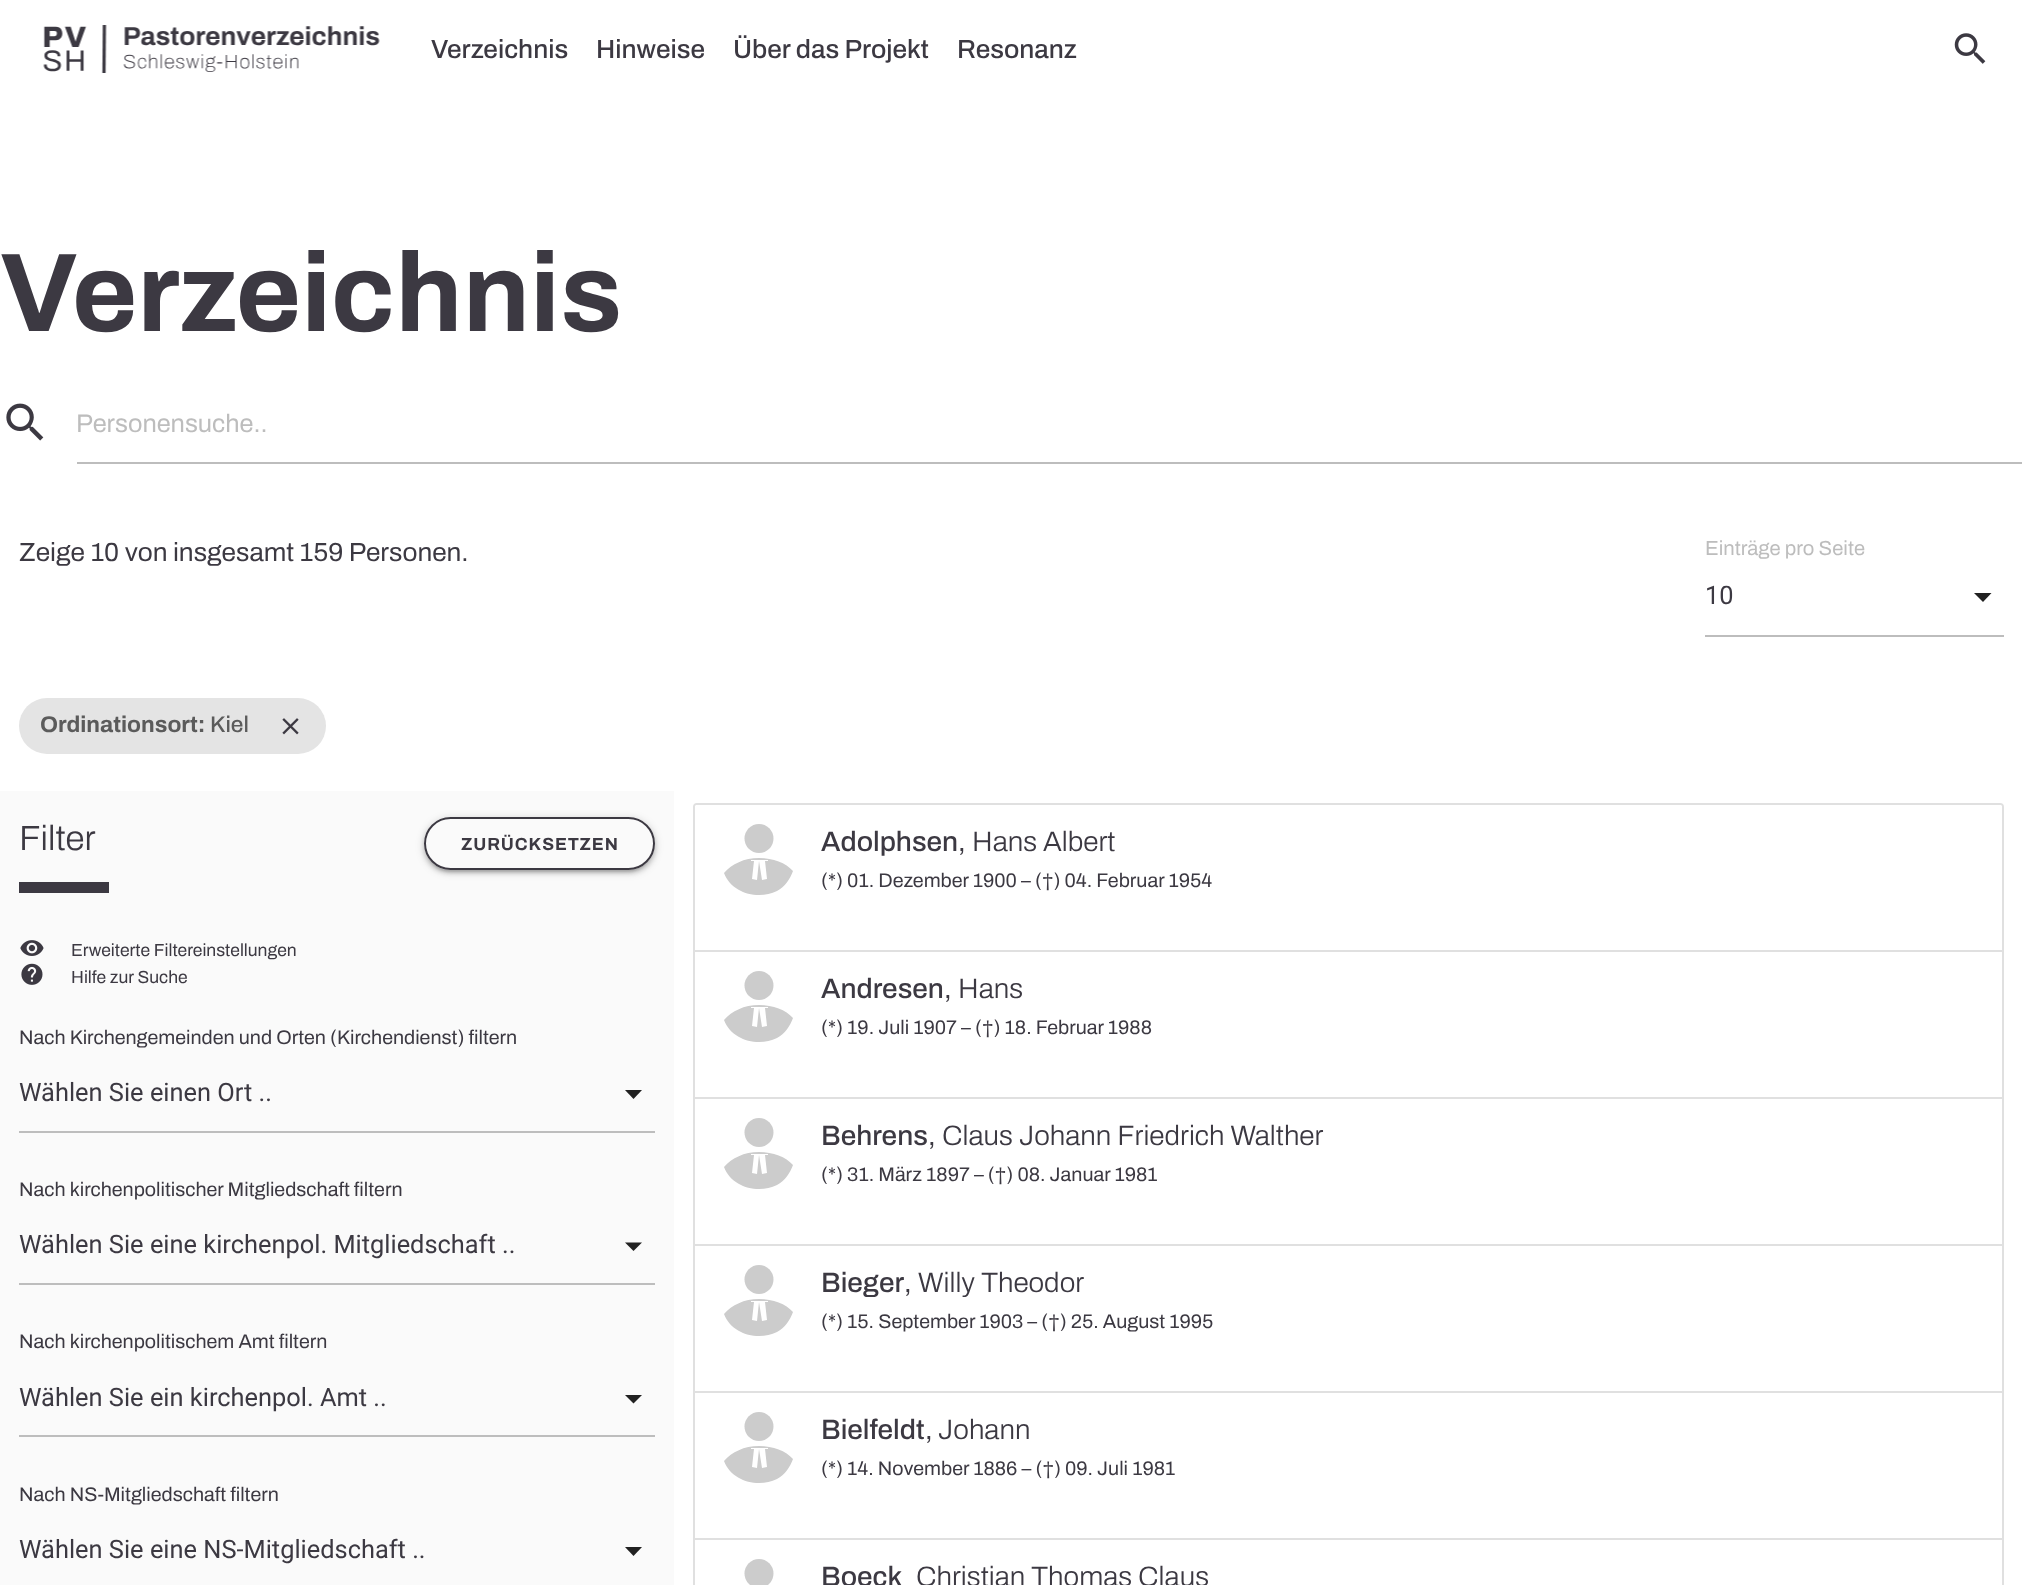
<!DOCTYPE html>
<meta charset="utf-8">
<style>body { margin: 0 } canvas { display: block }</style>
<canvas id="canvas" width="2022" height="1585"></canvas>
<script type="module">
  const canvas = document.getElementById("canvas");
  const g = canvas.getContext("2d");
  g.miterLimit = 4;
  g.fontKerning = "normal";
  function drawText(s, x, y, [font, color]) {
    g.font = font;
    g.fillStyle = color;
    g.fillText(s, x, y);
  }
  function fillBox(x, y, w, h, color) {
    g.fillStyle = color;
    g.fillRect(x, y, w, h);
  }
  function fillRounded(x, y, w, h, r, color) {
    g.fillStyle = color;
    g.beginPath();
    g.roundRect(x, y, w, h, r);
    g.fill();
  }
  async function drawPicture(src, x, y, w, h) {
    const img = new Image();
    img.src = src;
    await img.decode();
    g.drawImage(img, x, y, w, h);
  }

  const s1 = ["600 26.25px 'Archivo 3'", "#3C3942"];
  const s2 = ["600 112px 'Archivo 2'", "#3C3942"];
  const s3 = ["600 25.4px Archivo", "#BDBDBD"];
  const s4 = ["600 26.25px Archivo", "#3C3942"];
  const s5 = ["600 20.25px Archivo", "#BDBDBD"];
  const s6 = ["25.4px Roboto", "#3C3942"];
  const s7 = ["600 22.75px 'Archivo 2'", "#5B5B5B"];
  const s8 = ["600 22.75px 'Archivo 3'", "#5B5B5B"];
  const s9 = ["600 35px 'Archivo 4'", "#3C3942"];
  const s10 = ["600 17.5px 'Archivo 2'", "#3C3942"];
  const s11 = ["600 17.5px Archivo", "#3C3942"];
  const s12 = ["600 19.7px Archivo", "#3C3942"];
  const s13 = ["600 28px 'Archivo 3'", "#3C3942"];
  const s14 = ["600 28px Archivo", "#3C3942"];
  const s15 = ["600 28px 'Archivo 4'", "#3C3942"];

  fillBox(0, 0, 2022, 1585, "#FFFFFF");
  await drawPicture("pic1.png", 43, 25, 337, 48);
  drawText("Verzeichnis", 431, 58, s1);
  drawText("Hinweise", 596, 58, s1);
  drawText("Über das Projekt", 733, 58, s1);
  drawText("Resonanz", 957, 58, s1);
  await drawPicture("pic2.png", 1954, 33, 32, 31);
  drawText("Verzeichnis", 0, 331, s2);
  await drawPicture("pic3.png", 6, 403, 38, 38);
  drawText("Personensuche..", 76, 432, s3);
  fillBox(77, 462, 1945, 2, "#BDBDBD");
  drawText("Zeige 10 von insgesamt 159 Personen.", 19, 561, s4);
  drawText("Einträge pro Seite", 1705, 555, s5);
  fillBox(1705, 635, 299, 2, "#BDBDBD");
  drawText("10", 1705, 604, s6);
  g.fillStyle = "#212121";
  g.beginPath();
  g.moveTo(1974, 593);
  g.lineTo(1983, 602);
  g.lineTo(1991.5, 593);
  g.closePath();
  g.fill();
  fillRounded(19, 698, 307, 56, 28, "#E4E4E4");
  drawText("Ordinationsort:", 40, 732, s7);
  drawText("Kiel", 210, 732, s8);
  await drawPicture("pic4.png", 282, 718, 17, 17);
  fillBox(0, 791, 674, 794, "#FAFAFA");
  drawText("Filter", 19, 850, s9);
  g.save();
  g.beginPath();
  g.moveTo(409, 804);
  g.lineTo(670, 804);
  g.lineTo(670, 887);
  g.lineTo(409, 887);
  g.closePath();
  g.moveTo(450.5, 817);
  g.lineTo(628.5, 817);
  g.bezierCurveTo(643, 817, 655, 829, 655, 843.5);
  g.bezierCurveTo(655, 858, 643, 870, 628.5, 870);
  g.lineTo(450.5, 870);
  g.bezierCurveTo(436, 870, 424, 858, 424, 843.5);
  g.bezierCurveTo(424, 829, 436, 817, 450.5, 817);
  g.closePath();
  g.clip("evenodd");
  g.fillStyle = "rgba(0, 0, 0, 0.2)";
  g.filter = "blur(4.5px)";
  g.beginPath();
  g.roundRect(424, 819, 231, 53, 26.5);
  g.fill();
  g.filter = "none";
  g.restore();
  g.save();
  g.beginPath();
  g.moveTo(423, 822);
  g.lineTo(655, 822);
  g.lineTo(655, 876);
  g.lineTo(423, 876);
  g.closePath();
  g.moveTo(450.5, 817);
  g.lineTo(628.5, 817);
  g.bezierCurveTo(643, 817, 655, 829, 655, 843.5);
  g.bezierCurveTo(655, 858, 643, 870, 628.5, 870);
  g.lineTo(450.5, 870);
  g.bezierCurveTo(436, 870, 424, 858, 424, 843.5);
  g.bezierCurveTo(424, 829, 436, 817, 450.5, 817);
  g.closePath();
  g.clip("evenodd");
  g.fillStyle = "rgba(0, 0, 0, 0.12)";
  g.filter = "blur(1px)";
  g.beginPath();
  g.roundRect(427, 826, 224, 46, 23);
  g.fill();
  g.filter = "none";
  g.restore();
  g.save();
  g.beginPath();
  g.moveTo(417, 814);
  g.lineTo(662, 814);
  g.lineTo(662, 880);
  g.lineTo(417, 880);
  g.closePath();
  g.moveTo(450.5, 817);
  g.lineTo(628.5, 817);
  g.bezierCurveTo(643, 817, 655, 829, 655, 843.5);
  g.bezierCurveTo(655, 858, 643, 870, 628.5, 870);
  g.lineTo(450.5, 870);
  g.bezierCurveTo(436, 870, 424, 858, 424, 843.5);
  g.bezierCurveTo(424, 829, 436, 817, 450.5, 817);
  g.closePath();
  g.clip("evenodd");
  g.fillStyle = "rgba(0, 0, 0, 0.14)";
  g.filter = "blur(2px)";
  g.beginPath();
  g.roundRect(424, 821, 231, 52, 26);
  g.fill();
  g.filter = "none";
  g.restore();
  g.beginPath();
  g.roundRect(425, 818, 229, 51, 25.5);
  g.strokeStyle = "#3C3942";
  g.lineWidth = 2;
  g.stroke();
  g.letterSpacing = "0.9px";
  drawText("ZURÜCKSETZEN", 461, 850, s10);
  fillBox(19, 882, 90, 11, "#3C3942");
  await drawPicture("pic5.png", 20, 940, 24, 16);
  g.letterSpacing = "0px";
  drawText("Erweiterte Filtereinstellungen", 71, 956, s11);
  await drawPicture("pic6.png", 21, 963, 22, 22);
  drawText("Hilfe zur Suche", 71, 983, s11);
  drawText("Nach Kirchengemeinden und Orten (Kirchendienst) filtern", 19, 1044, s12);
  fillBox(19, 1131, 636, 2, "#BDBDBD");
  drawText("Wählen Sie einen Ort ..", 19, 1101, s6);
  g.fillStyle = "#212121";
  g.beginPath();
  g.moveTo(625, 1090);
  g.lineTo(633.5, 1099);
  g.lineTo(642, 1090);
  g.closePath();
  g.fill();
  drawText("Nach kirchenpolitischer Mitgliedschaft filtern", 19, 1196, s12);
  fillBox(19, 1283, 636, 2, "#BDBDBD");
  drawText("Wählen Sie eine kirchenpol. Mitgliedschaft ..", 19, 1253, s6);
  g.fillStyle = "#212121";
  g.beginPath();
  g.moveTo(625, 1242.5);
  g.lineTo(633.5, 1251);
  g.lineTo(642, 1242.5);
  g.closePath();
  g.fill();
  drawText("Nach kirchenpolitischem Amt filtern", 19, 1348, s12);
  fillBox(19, 1435, 636, 2, "#BDBDBD");
  drawText("Wählen Sie ein kirchenpol. Amt ..", 19, 1406, s6);
  g.fillStyle = "#212121";
  g.beginPath();
  g.moveTo(625, 1395);
  g.lineTo(633.5, 1403.5);
  g.lineTo(642, 1395);
  g.closePath();
  g.fill();
  drawText("Nach NS-Mitgliedschaft filtern", 19, 1501, s12);
  drawText("Wählen Sie eine NS-Mitgliedschaft ..", 19, 1558, s6);
  g.fillStyle = "#212121";
  g.beginPath();
  g.moveTo(625, 1547);
  g.lineTo(633.5, 1556);
  g.lineTo(642, 1547);
  g.closePath();
  g.fill();
  g.beginPath();
  g.roundRect(694, 804, 1309, 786, 3);
  g.strokeStyle = "#E0E0E0";
  g.stroke();
  g.fillStyle = "#FFFFFF";
  g.beginPath();
  g.roundRect(695, 805, 1307, 147, [2, 2, 0, 0]);
  g.fill();
  fillBox(695, 950, 1307, 2, "#E0E0E0");
  g.fillStyle = "#CCCCCC";
  g.beginPath();
  g.moveTo(759, 858);
  g.bezierCurveTo(773, 858, 786, 863, 793, 871);
  g.bezierCurveTo(790, 879, 785, 887, 777, 891);
  g.bezierCurveTo(759, 900, 732, 894, 724, 873);
  g.bezierCurveTo(732, 864, 744, 858, 759, 858);
  g.closePath();
  g.moveTo(768, 861);
  g.lineTo(765, 861);
  g.lineTo(767, 879);
  g.lineTo(762, 880);
  g.lineTo(759, 861);
  g.lineTo(757, 880);
  g.lineTo(752, 879);
  g.lineTo(754, 861);
  g.lineTo(751, 861);
  g.lineTo(751, 860);
  g.lineTo(768, 860);
  g.closePath();
  g.fill("evenodd");
  g.beginPath();
  g.arc(759, 838.5, 14.5, 0, Math.PI * 2);
  g.fill();
  drawText("Adolphsen", 821, 851, s13);
  drawText(",", 958, 851, s14);
  drawText("Hans Albert", 972, 851, s15);
  drawText("(*) 01. Dezember 1900 – (†) 04. Februar 1954", 821, 887, s12);
  fillBox(695, 1097, 1307, 2, "#E0E0E0");
  g.fillStyle = "#CCCCCC";
  g.beginPath();
  g.moveTo(759, 1005);
  g.bezierCurveTo(773, 1005, 786, 1010, 793, 1018);
  g.bezierCurveTo(790, 1026, 785, 1034, 777, 1038);
  g.bezierCurveTo(759, 1047, 732, 1041, 724, 1020);
  g.bezierCurveTo(732, 1011, 744, 1005, 759, 1005);
  g.closePath();
  g.moveTo(768, 1008);
  g.lineTo(765, 1008);
  g.lineTo(767, 1026);
  g.lineTo(762, 1027);
  g.lineTo(759, 1008);
  g.lineTo(757, 1027);
  g.lineTo(752, 1026);
  g.lineTo(754, 1008);
  g.lineTo(751, 1008);
  g.lineTo(751, 1007);
  g.lineTo(768, 1007);
  g.closePath();
  g.fill("evenodd");
  g.beginPath();
  g.arc(759, 985.5, 14.5, 0, Math.PI * 2);
  g.fill();
  drawText("Andresen", 821, 998, s13);
  drawText(",", 944, 998, s14);
  drawText("Hans", 958, 998, s15);
  drawText("(*) 19. Juli 1907 – (†) 18. Februar 1988", 821, 1034, s12);
  fillBox(695, 1244, 1307, 2, "#E0E0E0");
  g.fillStyle = "#CCCCCC";
  g.beginPath();
  g.moveTo(759, 1152);
  g.bezierCurveTo(773, 1152, 786, 1157, 793, 1165);
  g.bezierCurveTo(790, 1173, 785, 1181, 777, 1185);
  g.bezierCurveTo(759, 1194, 732, 1188, 724, 1167);
  g.bezierCurveTo(732, 1158, 744, 1152, 759, 1152);
  g.closePath();
  g.moveTo(768, 1155);
  g.lineTo(765, 1155);
  g.lineTo(767, 1173);
  g.lineTo(762, 1174);
  g.lineTo(759, 1155);
  g.lineTo(757, 1174);
  g.lineTo(752, 1173);
  g.lineTo(754, 1155);
  g.lineTo(751, 1155);
  g.lineTo(751, 1154);
  g.lineTo(768, 1154);
  g.closePath();
  g.fill("evenodd");
  g.beginPath();
  g.arc(759, 1132.5, 14.5, 0, Math.PI * 2);
  g.fill();
  drawText("Behrens", 821, 1145, s13);
  drawText(",", 928, 1145, s14);
  drawText("Claus Johann Friedrich Walther", 942, 1145, s15);
  drawText("(*) 31. März 1897 – (†) 08. Januar 1981", 821, 1181, s12);
  fillBox(695, 1391, 1307, 2, "#E0E0E0");
  g.fillStyle = "#CCCCCC";
  g.beginPath();
  g.moveTo(759, 1299);
  g.bezierCurveTo(773, 1299, 786, 1304, 793, 1312);
  g.bezierCurveTo(790, 1320, 785, 1328, 777, 1332);
  g.bezierCurveTo(759, 1341, 732, 1335, 724, 1314);
  g.bezierCurveTo(732, 1305, 744, 1299, 759, 1299);
  g.closePath();
  g.moveTo(768, 1302);
  g.lineTo(765, 1302);
  g.lineTo(767, 1320);
  g.lineTo(762, 1321);
  g.lineTo(759, 1302);
  g.lineTo(757, 1321);
  g.lineTo(752, 1320);
  g.lineTo(754, 1302);
  g.lineTo(751, 1302);
  g.lineTo(751, 1301);
  g.lineTo(768, 1301);
  g.closePath();
  g.fill("evenodd");
  g.beginPath();
  g.arc(759, 1279.5, 14.5, 0, Math.PI * 2);
  g.fill();
  drawText("Bieger", 821, 1292, s13);
  drawText(",", 904, 1292, s14);
  drawText("Willy Theodor", 918, 1292, s15);
  drawText("(*) 15. September 1903 – (†) 25. August 1995", 821, 1328, s12);
  fillBox(695, 1538, 1307, 2, "#E0E0E0");
  g.fillStyle = "#CCCCCC";
  g.beginPath();
  g.moveTo(759, 1446);
  g.bezierCurveTo(773, 1446, 786, 1451, 793, 1459);
  g.bezierCurveTo(790, 1467, 785, 1475, 777, 1479);
  g.bezierCurveTo(759, 1488, 732, 1482, 724, 1461);
  g.bezierCurveTo(732, 1452, 744, 1446, 759, 1446);
  g.closePath();
  g.moveTo(768, 1449);
  g.lineTo(765, 1449);
  g.lineTo(767, 1467);
  g.lineTo(762, 1468);
  g.lineTo(759, 1449);
  g.lineTo(757, 1468);
  g.lineTo(752, 1467);
  g.lineTo(754, 1449);
  g.lineTo(751, 1449);
  g.lineTo(751, 1448);
  g.lineTo(768, 1448);
  g.closePath();
  g.fill("evenodd");
  g.beginPath();
  g.arc(759, 1426.5, 14.5, 0, Math.PI * 2);
  g.fill();
  drawText("Bielfeldt", 821, 1439, s13);
  drawText(",", 925, 1439, s14);
  drawText("Johann", 938, 1439, s15);
  drawText("(*) 14. November 1886 – (†) 09. Juli 1981", 821, 1475, s12);
  g.fillStyle = "#CCCCCC";
  g.beginPath();
  g.arc(759, 1573.5, 14.5, 0, Math.PI * 2);
  g.fill();
  drawText("Boeck", 821, 1586, s13);
  drawText("Christian Thomas Claus", 916, 1586, s15);
</script>
